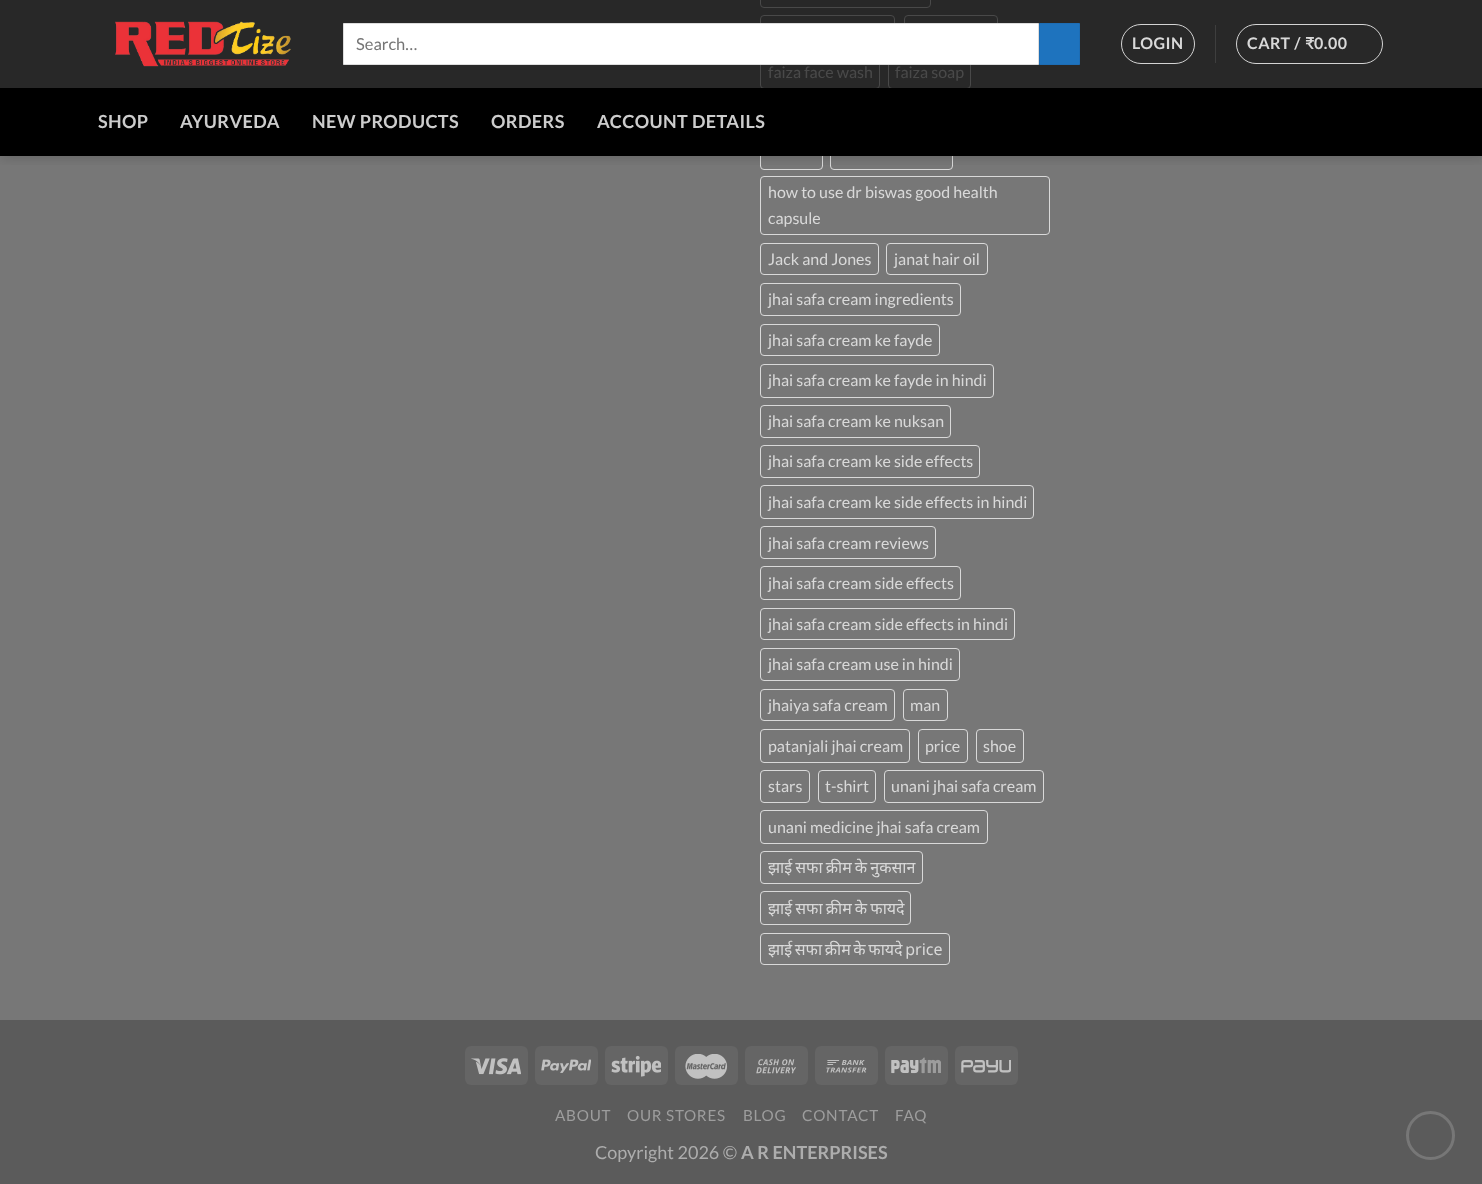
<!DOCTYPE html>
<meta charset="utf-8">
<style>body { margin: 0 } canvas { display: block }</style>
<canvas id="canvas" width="1482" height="1184"></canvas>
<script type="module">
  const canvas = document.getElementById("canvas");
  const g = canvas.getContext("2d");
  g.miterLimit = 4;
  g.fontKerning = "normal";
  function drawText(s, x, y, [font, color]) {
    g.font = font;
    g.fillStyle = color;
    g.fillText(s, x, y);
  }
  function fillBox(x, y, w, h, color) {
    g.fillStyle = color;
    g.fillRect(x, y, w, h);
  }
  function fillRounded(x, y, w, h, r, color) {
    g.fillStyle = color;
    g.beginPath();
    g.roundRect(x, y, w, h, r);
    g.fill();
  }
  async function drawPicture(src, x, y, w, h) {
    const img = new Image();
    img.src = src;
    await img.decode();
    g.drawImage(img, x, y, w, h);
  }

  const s1 = ["16px Lato", "#D9D9D9"];
  const s2 = ["16.5px Lato", "#757575"];
  const s3 = ["bold 16px Lato", "#D9D9D9"];
  const s4 = ["bold 16px 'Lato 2'", "#D9D9D9"];
  const s5 = ["bold 18px Lato", "#CCCCCC"];
  const s6 = ["16px Noto Sans", "#D9D9D9"];
  const s7 = ["15.25px Lato", "#9D9D9D"];
  const s8 = ["18px Lato", "#ADADAD"];
  const s9 = ["bold 18px Lato", "#ADADAD"];

  fillBox(0, 0, 1482, 1184, "#777777");
  g.beginPath();
  g.roundRect(760.5, -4.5, 170, 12, 3.5);
  g.strokeStyle = "#D9D9D9";
  g.stroke();
  g.beginPath();
  g.roundRect(760.5, 15.5, 134, 32, 3.5);
  g.stroke();
  g.beginPath();
  g.roundRect(904.5, 15.5, 93, 32, 3.5);
  g.stroke();
  g.beginPath();
  g.roundRect(760.5, 55.5, 119, 33, 3.5);
  g.stroke();
  g.beginPath();
  g.roundRect(888.5, 55.5, 82, 33, 3.5);
  g.stroke();
  g.beginPath();
  g.roundRect(760.5, 136.5, 62, 33, 3.5);
  g.stroke();
  g.beginPath();
  g.roundRect(830.5, 136.5, 122, 33, 3.5);
  g.stroke();
  g.beginPath();
  g.roundRect(760.5, 176.5, 289, 58, 3.5);
  g.stroke();
  g.save();
  g.beginPath();
  g.rect(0, 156, 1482, 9);
  g.clip();
  g.fillStyle = "rgba(0, 0, 0, 0.15)";
  g.filter = "blur(6px)";
  g.beginPath();
  g.rect(1, 1, 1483, 157);
  g.fill();
  g.filter = "none";
  g.restore();
  drawText("faiza face wash", 768, 78, s1);
  drawText("faiza soap", 895, 78, s1);
  fillBox(0, 0, 1482, 88, "rgba(0, 0, 0, 0.42)");
  fillBox(0, 0, 1482, 88, "rgba(0, 0, 0, 0.42)");
  await drawPicture("pic1.png", 115, 21, 176, 46);
  g.fillStyle = "#FFFFFF";
  g.beginPath();
  g.rect(343.5, 23.5, 695, 41);
  g.fill();
  g.strokeStyle = "#DDDDDD";
  g.stroke();
  drawText("Search…", 356, 50, s2);
  g.fillStyle = "#1E73BE";
  g.beginPath();
  g.rect(1039.5, 23.5, 40, 41);
  g.fill();
  g.strokeStyle = "#1D6DB5";
  g.stroke();
  g.beginPath();
  g.roundRect(1121.5, 24.5, 73, 39, 19.5);
  g.strokeStyle = "#D4D4D4";
  g.stroke();
  g.letterSpacing = "0.5px";
  drawText("LOGIN", 1132, 49, s3);
  fillBox(1215, 25, 1, 38, "#3E3E3E");
  g.beginPath();
  g.roundRect(1236.5, 24.5, 146, 39, 19.5);
  g.stroke();
  drawText("CART /", 1247, 49, s3);
  drawText("₹", 1305, 49, s4);
  drawText("0.00", 1314, 49, s3);
  fillBox(0, 88, 1482, 68, "#000000");
  g.letterSpacing = "0.4px";
  drawText("SHOP", 98, 128, s5);
  drawText("AYURVEDA", 180, 128, s5);
  drawText("NEW PRODUCTS", 312, 128, s5);
  drawText("ORDERS", 491, 128, s5);
  drawText("ACCOUNT DETAILS", 597, 128, s5);
  g.letterSpacing = "0px";
  drawText("how to use dr biswas good health", 768, 198, s1);
  drawText("capsule", 768, 224, s1);
  g.beginPath();
  g.roundRect(760.5, 243.5, 118, 31, 3.5);
  g.strokeStyle = "#D9D9D9";
  g.stroke();
  drawText("Jack and Jones", 768, 265, s1);
  g.beginPath();
  g.roundRect(886.5, 243.5, 101, 31, 3.5);
  g.stroke();
  drawText("janat hair oil", 894, 265, s1);
  g.beginPath();
  g.roundRect(760.5, 283.5, 200, 32, 3.5);
  g.stroke();
  drawText("jhai safa cream ingredients", 768, 305, s1);
  g.beginPath();
  g.roundRect(760.5, 324.5, 179, 31, 3.5);
  g.stroke();
  drawText("jhai safa cream ke fayde", 768, 346, s1);
  g.beginPath();
  g.roundRect(760.5, 364.5, 233, 33, 3.5);
  g.stroke();
  drawText("jhai safa cream ke fayde in hindi", 768, 386, s1);
  g.beginPath();
  g.roundRect(760.5, 405.5, 190, 32, 3.5);
  g.stroke();
  drawText("jhai safa cream ke nuksan", 768, 427, s1);
  g.beginPath();
  g.roundRect(760.5, 445.5, 219, 32, 3.5);
  g.stroke();
  drawText("jhai safa cream ke side effects", 768, 467, s1);
  g.beginPath();
  g.roundRect(760.5, 485.5, 273, 33, 3.5);
  g.stroke();
  drawText("jhai safa cream ke side effects in hindi", 768, 508, s1);
  g.beginPath();
  g.roundRect(760.5, 526.5, 175, 32, 3.5);
  g.stroke();
  drawText("jhai safa cream reviews", 768, 549, s1);
  g.beginPath();
  g.roundRect(760.5, 566.5, 200, 33, 3.5);
  g.stroke();
  drawText("jhai safa cream side effects", 768, 589, s1);
  g.beginPath();
  g.roundRect(760.5, 608.5, 254, 31, 3.5);
  g.stroke();
  drawText("jhai safa cream side effects in hindi", 768, 630, s1);
  g.beginPath();
  g.roundRect(760.5, 648.5, 199, 32, 3.5);
  g.stroke();
  drawText("jhai safa cream use in hindi", 768, 670, s1);
  g.beginPath();
  g.roundRect(760.5, 689.5, 134, 31, 3.5);
  g.stroke();
  drawText("jhaiya safa cream", 768, 711, s1);
  g.beginPath();
  g.roundRect(903.5, 689.5, 44, 31, 3.5);
  g.stroke();
  drawText("man", 910, 711, s1);
  g.beginPath();
  g.roundRect(760.5, 729.5, 149, 33, 3.5);
  g.stroke();
  drawText("patanjali jhai cream", 768, 752, s1);
  g.beginPath();
  g.roundRect(918.5, 729.5, 49, 33, 3.5);
  g.stroke();
  drawText("price", 925, 752, s1);
  g.beginPath();
  g.roundRect(976.5, 729.5, 47, 33, 3.5);
  g.stroke();
  drawText("shoe", 983, 752, s1);
  g.beginPath();
  g.roundRect(760.5, 770.5, 49, 32, 3.5);
  g.stroke();
  drawText("stars", 768, 792, s1);
  g.beginPath();
  g.roundRect(818.5, 770.5, 57, 32, 3.5);
  g.stroke();
  drawText("t-shirt", 825, 792, s1);
  g.beginPath();
  g.roundRect(884.5, 770.5, 159, 32, 3.5);
  g.stroke();
  drawText("unani jhai safa cream", 891, 792, s1);
  g.beginPath();
  g.roundRect(760.5, 810.5, 227, 33, 3.5);
  g.stroke();
  drawText("unani medicine jhai safa cream", 768, 833, s1);
  g.beginPath();
  g.roundRect(760.5, 851.5, 162, 32, 3.5);
  g.stroke();
  g.wordSpacing = "-1px";
  drawText("झाई सफा क्रीम के नुकसान", 768, 873, s6);
  g.beginPath();
  g.roundRect(760.5, 891.5, 150, 33, 3.5);
  g.stroke();
  drawText("झाई सफा क्रीम के फायदे", 768, 914, s6);
  g.beginPath();
  g.roundRect(760.5, 933.5, 189, 31, 3.5);
  g.stroke();
  g.wordSpacing = "-1.5px";
  drawText("झाई सफा क्रीम के फायदे price", 768, 955, s6);
  fillBox(0, 1020, 1482, 164, "#5B5B5B");
  fillRounded(465, 1046, 63, 39, 6, "#656565");
  await drawPicture("pic2.png", 471, 1058, 50, 17);
  fillRounded(535, 1046, 63, 39, 6, "#656565");
  await drawPicture("pic3.png", 541, 1059, 50, 14);
  fillRounded(605, 1046, 63, 39, 6, "#656565");
  await drawPicture("pic4.png", 611, 1055, 50, 22);
  fillRounded(675, 1046, 63, 39, 6, "#656565");
  await drawPicture("pic5.png", 685, 1054, 43, 25);
  fillRounded(745, 1046, 63, 39, 6, "#656565");
  await drawPicture("pic6.png", 756, 1059, 40, 15);
  fillRounded(815, 1046, 63, 39, 6, "#656565");
  await drawPicture("pic7.png", 826, 1060, 41, 13);
  fillRounded(885, 1046, 63, 39, 6, "#656565");
  await drawPicture("pic8.png", 891, 1057, 50, 17);
  fillRounded(955, 1046, 63, 39, 6, "#656565");
  await drawPicture("pic9.png", 961, 1060, 50, 13);
  g.letterSpacing = "0.75px";
  g.wordSpacing = "0px";
  drawText("ABOUT", 555, 1121, s7);
  drawText("OUR STORES", 627, 1121, s7);
  drawText("BLOG", 743, 1121, s7);
  drawText("CONTACT", 802, 1121, s7);
  drawText("FAQ", 895, 1121, s7);
  g.letterSpacing = "0px";
  drawText("Copyright 2026 ©", 595, 1159, s8);
  drawText("A R ENTERPRISES", 741, 1159, s9);
  g.beginPath();
  g.arc(1430.5, 1135.5, 23, 0, Math.PI * 2);
  g.strokeStyle = "#777777";
  g.lineWidth = 3;
  g.stroke();
</script>
